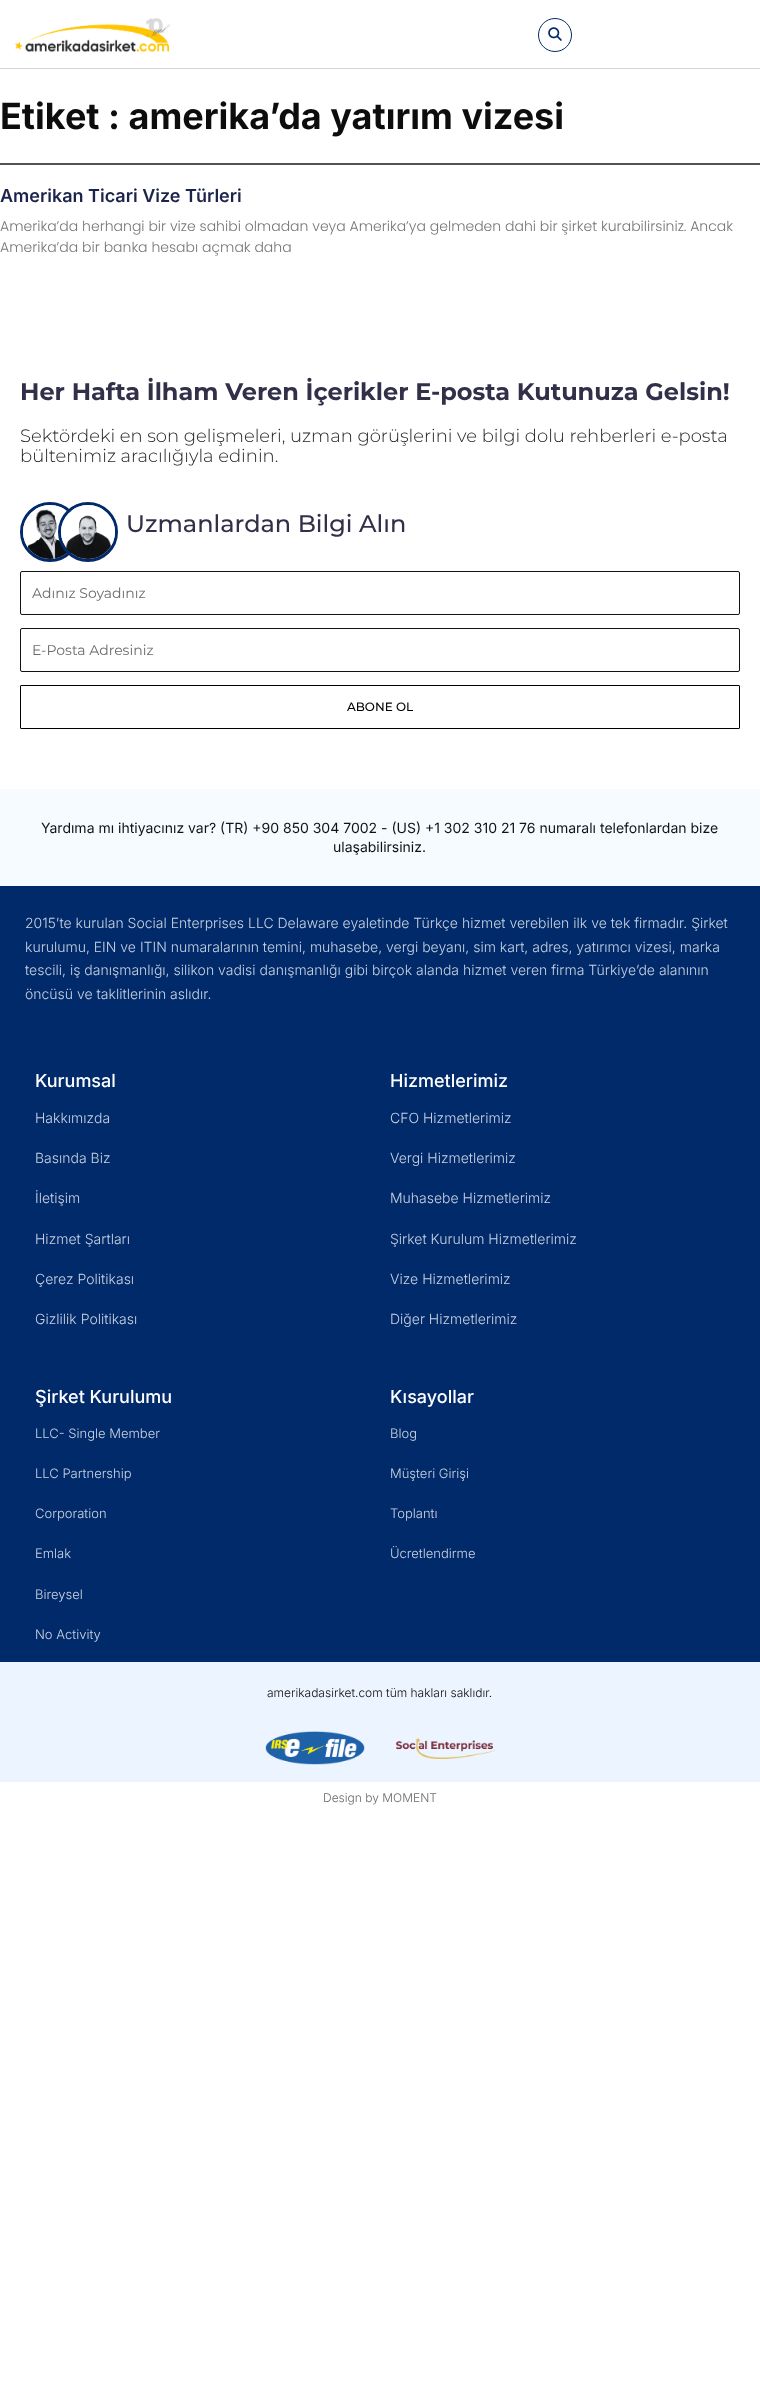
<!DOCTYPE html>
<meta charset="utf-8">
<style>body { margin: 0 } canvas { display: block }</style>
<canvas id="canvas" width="760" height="2383"></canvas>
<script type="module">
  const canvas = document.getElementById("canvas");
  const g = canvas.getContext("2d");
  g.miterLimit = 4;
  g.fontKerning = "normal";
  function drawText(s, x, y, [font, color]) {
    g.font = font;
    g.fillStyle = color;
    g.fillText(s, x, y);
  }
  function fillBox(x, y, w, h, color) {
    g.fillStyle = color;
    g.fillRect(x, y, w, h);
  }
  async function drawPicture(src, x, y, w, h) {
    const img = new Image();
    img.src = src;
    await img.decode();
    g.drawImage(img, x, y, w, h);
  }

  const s1 = ["bold 36px Inter", "#0D0D0D"];
  const s2 = ["600 18px Inter", "#1C244B"];
  const s3 = ["300 14px Poppins", "#777777"];
  const s4 = ["bold 24px Montserrat", "#323049"];
  const s5 = ["300 18px Montserrat", "#242424"];
  const s6 = ["500 24px Montserrat", "#323049"];
  const s7 = ["14px Montserrat", "#6B6B6B"];
  const s8 = ["500 12px Montserrat", "#000000"];
  const s9 = ["14px Inter", "#101218"];
  const s10 = ["300 14px Inter", "#CAD2E0"];
  const s11 = ["500 18px Inter", "#FFFFFF"];
  const s12 = ["300 13px Inter", "#CAD2E0"];
  const s13 = ["300 12px Inter", "#0D0D0D"];
  const s14 = ["300 12px Inter", "#6B6B6B"];

  fillBox(0, 0, 760, 2383, "#FFFFFF");
  fillBox(0, 68, 760, 1, "#D5D5D5");
  await drawPicture("pic1.png", 15, 18, 155, 35);
  g.beginPath();
  g.arc(555, 35, 16.5, 0, Math.PI * 2);
  g.strokeStyle = "#062A6B";
  g.stroke();
  await drawPicture("pic2.png", 548, 27, 14, 14);
  fillBox(0, 163, 760, 2, "#525252");
  drawText("Etiket : amerika’da yatırım vizesi", 0, 129, s1);
  drawText("Amerikan Ticari Vize Türleri", 0, 202, s2);
  drawText("Amerika’da herhangi bir vize sahibi olmadan veya Amerika’ya gelmeden dahi bir şirket kurabilirsiniz. Ancak", 0, 231, s3);
  drawText("Amerika’da bir banka hesabı açmak daha", 0, 252, s3);
  drawText("Her Hafta İlham Veren İçerikler E-posta Kutunuza Gelsin!", 20, 400, s4);
  drawText("Sektördeki en son gelişmeleri, uzman görüşlerini ve bilgi dolu rehberleri e-posta", 20, 442, s5);
  drawText("bültenimiz aracılığıyla edinin.", 20, 462, s5);
  g.beginPath();
  g.arc(50, 532, 28.5, 0, Math.PI * 2);
  g.strokeStyle = "#012A6B";
  g.lineWidth = 3;
  g.stroke();
  await drawPicture("pic3.png", 23, 505, 46, 54);
  g.beginPath();
  g.arc(88, 532, 28.5, 0, Math.PI * 2);
  g.stroke();
  await drawPicture("pic4.png", 61, 505, 54, 54);
  drawText("Uzmanlardan Bilgi Alın", 126, 532, s6);
  g.beginPath();
  g.roundRect(20.5, 571.5, 719, 43, 1.5);
  g.strokeStyle = "#101218";
  g.lineWidth = 1;
  g.stroke();
  drawText("Adınız Soyadınız", 32, 598, s7);
  g.beginPath();
  g.roundRect(20.5, 628.5, 719, 43, 1.5);
  g.stroke();
  drawText("E-Posta Adresiniz", 32, 655, s7);
  g.beginPath();
  g.roundRect(20.5, 685.5, 719, 43, 0.5);
  g.strokeStyle = "#000000";
  g.stroke();
  drawText("ABONE OL", 347, 711, s8);
  fillBox(0, 789, 760, 97, "#F6FBFF");
  drawText("Yardıma mı ihtiyacınız var? (TR) +90 850 304 7002 - (US) +1 302 310 21 76 numaralı telefonlardan bize", 41, 833, s9);
  drawText("ulaşabilirsiniz.", 333, 852, s9);
  fillBox(0, 886, 760, 776, "#012A6B");
  drawText("2015’te kurulan Social Enterprises LLC Delaware eyaletinde Türkçe hizmet verebilen ilk ve tek firmadır. Şirket", 25, 928, s10);
  drawText("kurulumu, EIN ve ITIN numaralarının temini, muhasebe, vergi beyanı, sim kart, adres, yatırımcı vizesi, marka", 25, 952, s10);
  drawText("tescili, iş danışmanlığı, silikon vadisi danışmanlığı gibi birçok alanda hizmet veren firma Türkiye’de alanının", 25, 975, s10);
  drawText("öncüsü ve taklitlerinin aslıdır.", 25, 999, s10);
  drawText("Kurumsal", 35, 1087, s11);
  drawText("Hakkımızda", 35, 1123, s10);
  drawText("Basında Biz", 35, 1163, s10);
  drawText("İletişim", 35, 1203, s10);
  drawText("Hizmet Şartları", 35, 1244, s10);
  drawText("Çerez Politikası", 35, 1284, s10);
  drawText("Gizlilik Politikası", 35, 1324, s10);
  drawText("Hizmetlerimiz", 390, 1087, s11);
  drawText("CFO Hizmetlerimiz", 390, 1123, s10);
  drawText("Vergi Hizmetlerimiz", 390, 1163, s10);
  drawText("Muhasebe Hizmetlerimiz", 390, 1203, s10);
  drawText("Şirket Kurulum Hizmetlerimiz", 390, 1244, s10);
  drawText("Vize Hizmetlerimiz", 390, 1284, s10);
  drawText("Diğer Hizmetlerimiz", 390, 1324, s10);
  drawText("Şirket Kurulumu", 35, 1403, s11);
  drawText("LLC- Single Member", 35, 1438, s12);
  drawText("LLC Partnership", 35, 1478, s12);
  drawText("Corporation", 35, 1518, s12);
  drawText("Emlak", 35, 1558, s12);
  drawText("Bireysel", 35, 1599, s12);
  drawText("No Activity", 35, 1639, s12);
  drawText("Kısayollar", 390, 1403, s11);
  drawText("Blog", 390, 1438, s12);
  drawText("Müşteri Girişi", 390, 1478, s12);
  drawText("Toplantı", 390, 1518, s12);
  drawText("Ücretlendirme", 390, 1558, s12);
  fillBox(0, 1662, 760, 120, "#ECF4FF");
  drawText("amerikadasirket.com tüm hakları saklıdır.", 267, 1697, s13);
  await drawPicture("pic5.png", 265, 1731, 100, 34);
  await drawPicture("pic6.png", 396, 1738, 100, 21);
  drawText("Design by MOMENT", 323, 1802, s14);
</script>
